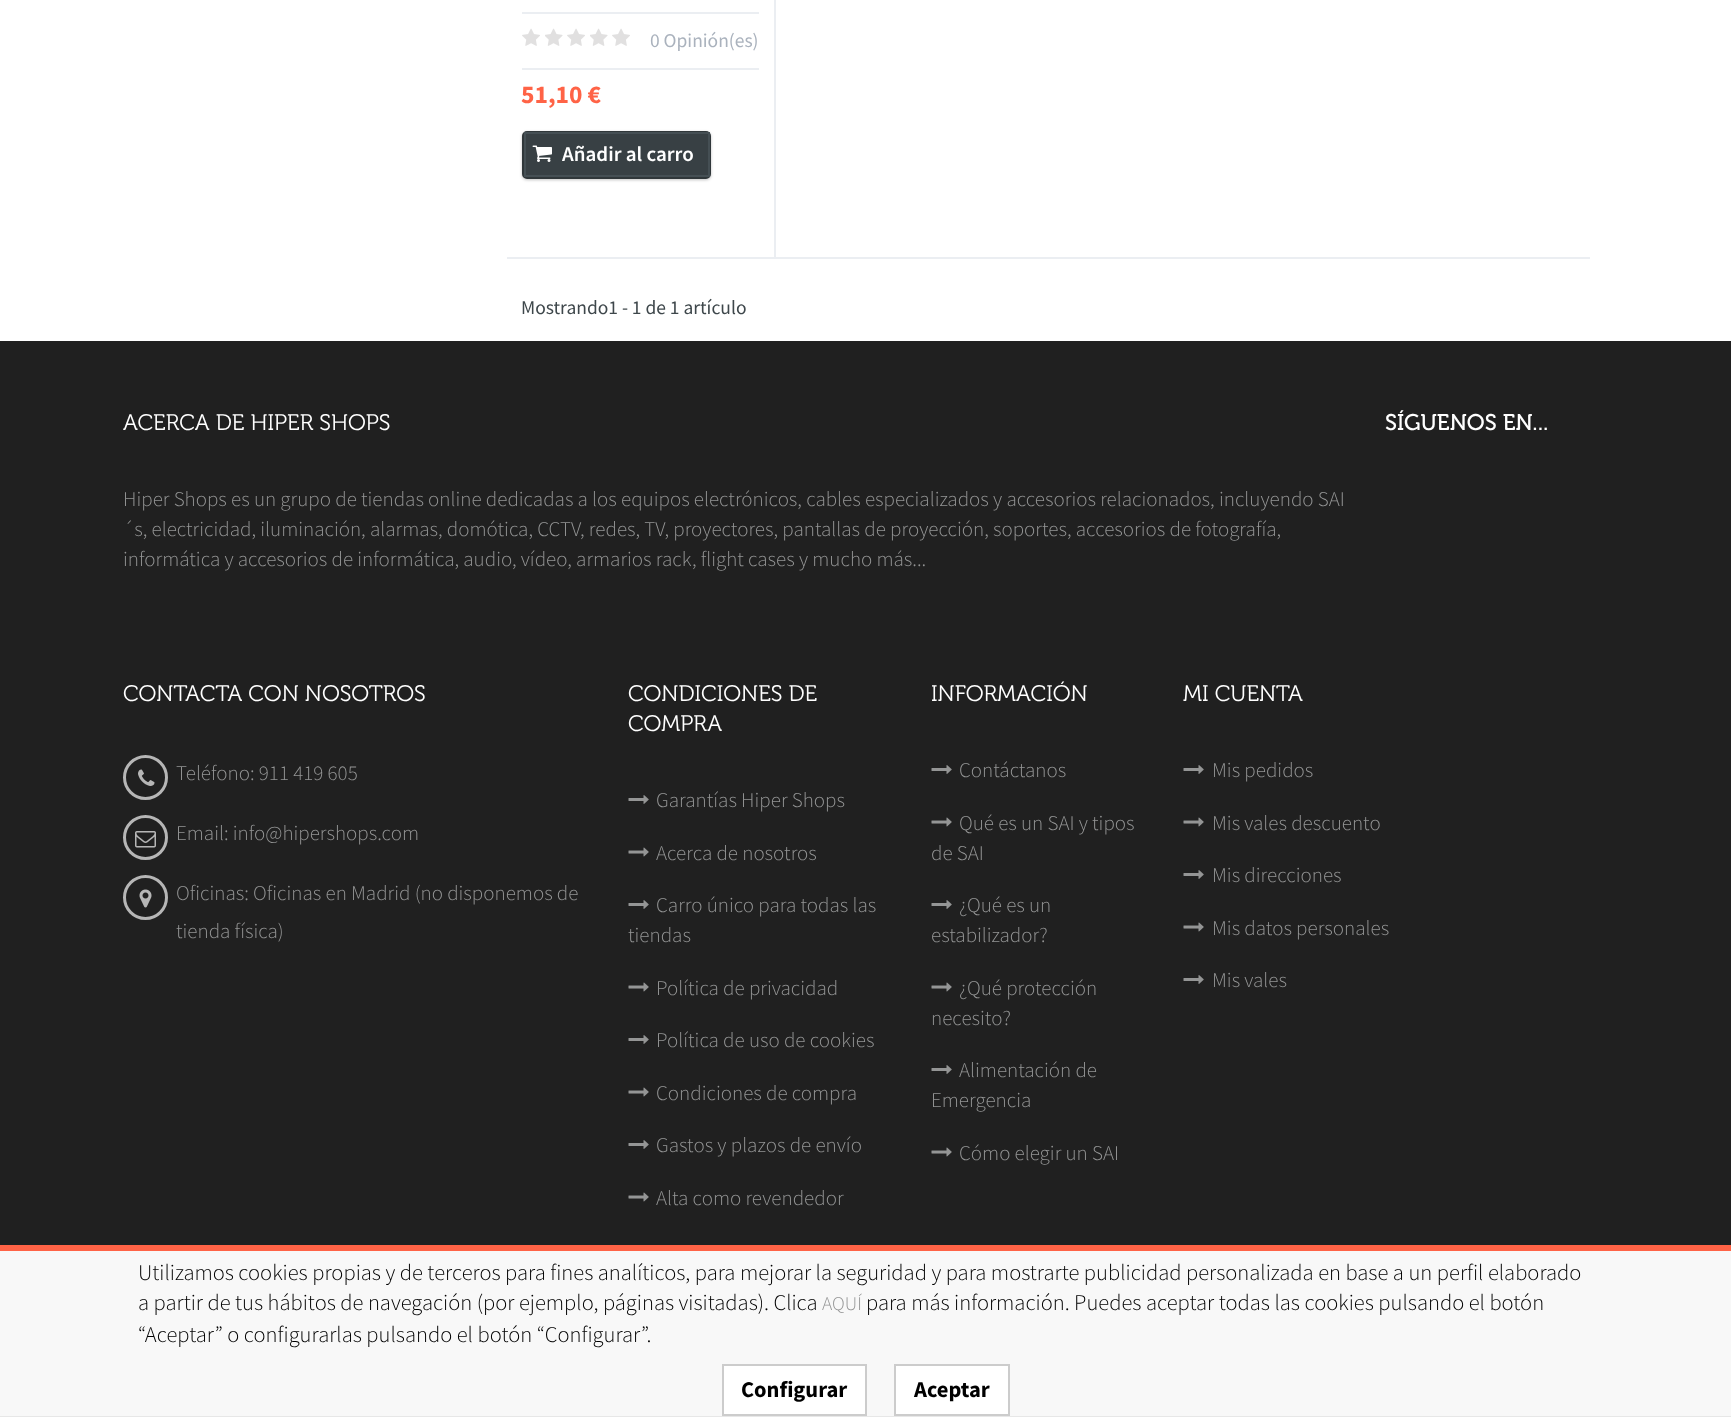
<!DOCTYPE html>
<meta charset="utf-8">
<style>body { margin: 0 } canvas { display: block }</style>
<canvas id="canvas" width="1731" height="1417"></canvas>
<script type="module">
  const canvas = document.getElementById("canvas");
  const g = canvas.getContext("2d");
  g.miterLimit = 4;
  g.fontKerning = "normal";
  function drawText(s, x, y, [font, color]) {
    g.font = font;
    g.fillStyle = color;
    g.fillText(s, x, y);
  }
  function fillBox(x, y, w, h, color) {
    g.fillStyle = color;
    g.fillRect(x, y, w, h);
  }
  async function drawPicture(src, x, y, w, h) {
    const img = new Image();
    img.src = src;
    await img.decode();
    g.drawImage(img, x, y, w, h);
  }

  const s1 = ["19.5px Source Sans Pro", "#AAB2BD"];
  const s2 = ["bold 25.5px Source Sans Pro", "#FF6346"];
  const s3 = ["600 21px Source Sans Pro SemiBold", "#FFFFFF"];
  const s4 = ["19.5px Source Sans Pro", "#3E474B"];
  const s5 = ["22.5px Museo", "#FFFFFF"];
  const s6 = ["300 21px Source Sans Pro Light", "#949595"];
  const s7 = ["22.5px 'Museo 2'", "#FFFFFF"];
  const s8 = ["300 22.5px Source Sans Pro Light", "#000000"];
  const s9 = ["300 19.5px Source Sans Pro Light", "#949595"];
  const s10 = ["bold 22.5px Source Sans Pro", "#000000"];

  fillBox(0, 0, 1731, 1417, "#FFFFFF");
  fillBox(774, 0, 2, 257, "#EBEEF2");
  fillBox(522, 12, 237, 2, "#EBEEF2");
  await drawPicture("pic1.png", 522, 28, 18, 18);
  await drawPicture("pic2.png", 545, 28, 18, 18);
  await drawPicture("pic1.png", 567, 28, 18, 18);
  await drawPicture("pic2.png", 590, 28, 18, 18);
  await drawPicture("pic1.png", 612, 28, 18, 18);
  drawText("0 Opinión(es)", 650, 47, s1);
  fillBox(522, 68, 237, 2, "#EBEEF2");
  drawText("51,10 €", 521, 103, s2);
  g.fillStyle = "rgba(0, 0, 0, 0.24)";
  g.filter = "blur(1.5px)";
  g.beginPath();
  g.roundRect(522, 132, 189, 48, 5);
  g.fill();
  g.filter = "none";
  g.fillStyle = "#384044";
  g.beginPath();
  g.roundRect(523, 132, 187, 46, 4);
  g.fill();
  g.strokeStyle = "#30373A";
  g.lineWidth = 2;
  g.stroke();
  g.strokeStyle = "#454F54";
  g.strokeRect(525, 133, 184, 43);
  await drawPicture("pic3.png", 532, 145, 20, 17);
  drawText("Añadir al carro", 562, 161, s3);
  fillBox(507, 257, 1083, 2, "#EBEEF2");
  drawText("Mostrando1 - 1 de 1 artículo", 521, 314, s4);
  fillBox(0, 341, 1731, 904, "#202020");
  drawText("ACERCA DE HIPER SHOPS", 123, 430, s5);
  drawText("Hiper Shops es un grupo de tiendas online dedicadas a los equipos electrónicos, cables especializados y accesorios relacionados, incluyendo SAI", 123, 506, s6);
  drawText("´s, electricidad, iluminación, alarmas, domótica, CCTV, redes, TV, proyectores, pantallas de proyección, soportes, accesorios de fotografía,", 123, 536, s6);
  drawText("informática y accesorios de informática, audio, vídeo, armarios rack, flight cases y mucho más...", 123, 566, s6);
  drawText("SÍGUENOS EN...", 1385, 430, s7);
  drawText("CONTACTA CON NOSOTROS", 123, 701, s5);
  g.beginPath();
  g.arc(145.5, 777.5, 21, 0, Math.PI * 2);
  g.strokeStyle = "#B6B6B6";
  g.lineWidth = 3;
  g.stroke();
  await drawPicture("pic4.png", 138, 769, 17, 17);
  drawText("Teléfono: 911 419 605", 176, 780, s6);
  g.beginPath();
  g.arc(145.5, 837.5, 21, 0, Math.PI * 2);
  g.stroke();
  await drawPicture("pic5.png", 135, 831, 21, 17);
  drawText("Email: info@hipershops.com", 176, 840, s6);
  g.beginPath();
  g.arc(145.5, 897.5, 21, 0, Math.PI * 2);
  g.stroke();
  await drawPicture("pic6.png", 139, 889, 13, 19);
  drawText("Oficinas: Oficinas en Madrid (no disponemos de", 176, 900, s6);
  drawText("tienda física)", 176, 938, s6);
  drawText("CONDICIONES DE", 628, 701, s5);
  drawText("COMPRA", 628, 731, s5);
  await drawPicture("pic7.png", 628, 795, 21, 9);
  drawText("Garantías Hiper Shops", 656, 807, s6);
  await drawPicture("pic8.png", 628, 847, 21, 10);
  drawText("Acerca de nosotros", 656, 860, s6);
  await drawPicture("pic7.png", 628, 900, 21, 9);
  drawText("Carro único para todas las", 656, 912, s6);
  drawText("tiendas", 628, 942, s6);
  await drawPicture("pic8.png", 628, 982, 21, 10);
  drawText("Política de privacidad", 656, 995, s6);
  await drawPicture("pic7.png", 628, 1035, 21, 9);
  drawText("Política de uso de cookies", 656, 1047, s6);
  await drawPicture("pic8.png", 628, 1087, 21, 10);
  drawText("Condiciones de compra", 656, 1100, s6);
  await drawPicture("pic7.png", 628, 1140, 21, 9);
  drawText("Gastos y plazos de envío", 656, 1152, s6);
  await drawPicture("pic8.png", 628, 1192, 21, 10);
  drawText("Alta como revendedor", 656, 1205, s6);
  drawText("INFORMACIÓN", 931, 701, s5);
  await drawPicture("pic7.png", 931, 765, 21, 9);
  drawText("Contáctanos", 959, 777, s6);
  await drawPicture("pic8.png", 931, 817, 21, 10);
  drawText("Qué es un SAI y tipos", 959, 830, s6);
  drawText("de SAI", 931, 860, s6);
  await drawPicture("pic7.png", 931, 900, 21, 9);
  drawText("¿Qué es un", 959, 912, s6);
  drawText("estabilizador?", 931, 942, s6);
  await drawPicture("pic8.png", 931, 982, 21, 10);
  drawText("¿Qué protección", 959, 995, s6);
  drawText("necesito?", 931, 1025, s6);
  await drawPicture("pic7.png", 931, 1065, 21, 9);
  drawText("Alimentación de", 959, 1077, s6);
  drawText("Emergencia", 931, 1107, s6);
  await drawPicture("pic8.png", 931, 1147, 21, 10);
  drawText("Cómo elegir un SAI", 959, 1160, s6);
  drawText("MI CUENTA", 1183, 701, s5);
  await drawPicture("pic7.png", 1183, 765, 21, 9);
  drawText("Mis pedidos", 1212, 777, s6);
  await drawPicture("pic8.png", 1183, 817, 21, 10);
  drawText("Mis vales descuento", 1212, 830, s6);
  await drawPicture("pic7.png", 1183, 870, 21, 9);
  drawText("Mis direcciones", 1212, 882, s6);
  await drawPicture("pic8.png", 1183, 922, 21, 10);
  drawText("Mis datos personales", 1212, 935, s6);
  await drawPicture("pic7.png", 1183, 975, 21, 9);
  drawText("Mis vales", 1212, 987, s6);
  fillBox(0, 1251, 1731, 165, "#F8F8F8");
  fillBox(0, 1416, 1731, 1, "#E7E7E7");
  fillBox(0, 1245, 1731, 6, "#FF6346");
  drawText("Utilizamos cookies propias y de terceros para fines analíticos, para mejorar la seguridad y para mostrarte publicidad personalizada en base a un perfil elaborado", 138, 1280, s8);
  drawText("a partir de tus hábitos de navegación (por ejemplo, páginas visitadas). Clica", 138, 1310, s8);
  drawText("AQUÍ", 822, 1310, s9);
  drawText("para más información. Puedes aceptar todas las cookies pulsando el botón", 866, 1310, s8);
  drawText("“Aceptar” o configurarlas pulsando el botón “Configurar”.", 138, 1342, s8);
  g.fillStyle = "#FFFFFF";
  g.beginPath();
  g.rect(723, 1365, 143, 50);
  g.fill();
  g.strokeStyle = "#CCCCCC";
  g.lineWidth = 2;
  g.stroke();
  drawText("Configurar", 741, 1397, s10);
  g.fillStyle = "#FFFFFF";
  g.beginPath();
  g.rect(895, 1365, 114, 50);
  g.fill();
  g.stroke();
  drawText("Aceptar", 914, 1397, s10);
</script>
